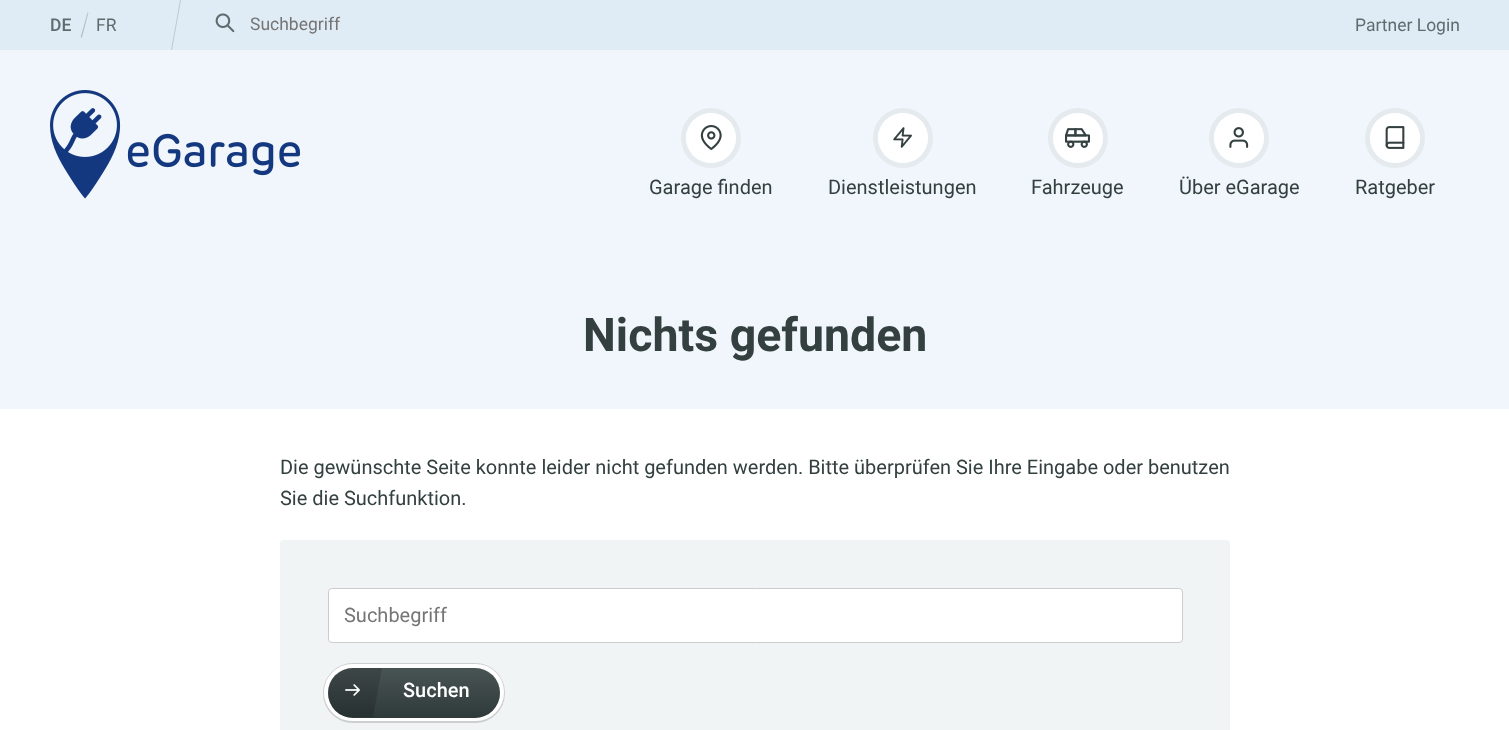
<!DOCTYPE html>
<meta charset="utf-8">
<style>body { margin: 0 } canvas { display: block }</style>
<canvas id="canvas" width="1509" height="730"></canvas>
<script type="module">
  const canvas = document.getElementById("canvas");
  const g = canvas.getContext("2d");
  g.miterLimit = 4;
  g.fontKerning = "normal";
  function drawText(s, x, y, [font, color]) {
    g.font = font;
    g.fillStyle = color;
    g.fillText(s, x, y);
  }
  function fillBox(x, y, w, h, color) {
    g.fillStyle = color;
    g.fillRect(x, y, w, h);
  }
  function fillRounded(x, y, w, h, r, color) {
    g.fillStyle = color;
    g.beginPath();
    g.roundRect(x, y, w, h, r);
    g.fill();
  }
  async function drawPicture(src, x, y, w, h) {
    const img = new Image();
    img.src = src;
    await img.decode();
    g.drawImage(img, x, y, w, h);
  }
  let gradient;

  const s1 = ["500 17.5px Roboto", "#5F6B6D"];
  const s2 = ["17.5px Roboto", "#5F6B6D"];
  const s3 = ["17.5px Roboto", "#757575"];
  const s4 = ["20px Roboto", "#344040"];
  const s5 = ["bold 46.5px Roboto", "#344040"];
  const s6 = ["20px Roboto", "#757575"];
  const s7 = ["500 20px Roboto", "#FFFFFF"];

  fillBox(0, 0, 1509, 730, "#FFFFFF");
  fillBox(0, 0, 1509, 50, "#E0ECF5");
  drawText("DE", 50, 31, s1);
  g.fillStyle = "#B5C1C8";
  g.beginPath();
  g.moveTo(87.5, 12.5);
  g.lineTo(88.5, 12.5);
  g.lineTo(82, 37.5);
  g.lineTo(80.5, 37.5);
  g.closePath();
  g.fill();
  drawText("FR", 96, 31, s2);
  g.fillStyle = "#BEC9D0";
  g.beginPath();
  g.moveTo(180, 0);
  g.lineTo(181, 0);
  g.lineTo(172, 50);
  g.lineTo(171, 50);
  g.closePath();
  g.fill();
  await drawPicture("pic1.png", 215, 13, 20, 20);
  drawText("Suchbegriff", 250, 30, s3);
  drawText("Partner Login", 1355, 31, s2);
  fillBox(0, 50, 1509, 359, "#F0F6FB");
  await drawPicture("pic2.png", 50, 90, 250, 109);
  g.beginPath();
  g.arc(711, 138, 27.5, 0, Math.PI * 2);
  g.strokeStyle = "#E4EAEE";
  g.lineWidth = 5;
  g.stroke();
  g.fillStyle = "#FFFFFF";
  g.beginPath();
  g.arc(711, 138, 25, 0, Math.PI * 2);
  g.fill();
  await drawPicture("pic3.png", 700, 125, 22, 25);
  drawText("Garage finden", 649, 194, s4);
  g.beginPath();
  g.arc(903, 138, 27.5, 0, Math.PI * 2);
  g.stroke();
  g.fillStyle = "#FFFFFF";
  g.beginPath();
  g.arc(903, 138, 25, 0, Math.PI * 2);
  g.fill();
  await drawPicture("pic4.png", 893, 127, 19, 21);
  drawText("Dienstleistungen", 828, 194, s4);
  g.beginPath();
  g.arc(1078, 138, 27.5, 0, Math.PI * 2);
  g.stroke();
  g.fillStyle = "#FFFFFF";
  g.beginPath();
  g.arc(1078, 138, 25, 0, Math.PI * 2);
  g.fill();
  await drawPicture("pic5.png", 1065, 128, 25, 20);
  drawText("Fahrzeuge", 1031, 194, s4);
  g.beginPath();
  g.arc(1239, 138, 27.5, 0, Math.PI * 2);
  g.stroke();
  g.fillStyle = "#FFFFFF";
  g.beginPath();
  g.arc(1239, 138, 25, 0, Math.PI * 2);
  g.fill();
  await drawPicture("pic6.png", 1229, 127, 20, 21);
  drawText("Über eGarage", 1179, 194, s4);
  g.beginPath();
  g.arc(1395, 138, 27.5, 0, Math.PI * 2);
  g.stroke();
  g.fillStyle = "#FFFFFF";
  g.beginPath();
  g.arc(1395, 138, 25, 0, Math.PI * 2);
  g.fill();
  await drawPicture("pic7.png", 1385, 126, 20, 23);
  drawText("Ratgeber", 1355, 194, s4);
  drawText("Nichts gefunden", 583, 351, s5);
  drawText("Die gewünschte Seite konnte leider nicht gefunden werden. Bitte überprüfen Sie Ihre Eingabe oder benutzen", 280, 474, s4);
  drawText("Sie die Suchfunktion.", 280, 505, s4);
  fillRounded(280, 540, 950, 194, 4, "#F0F4F4");
  g.fillStyle = "#FFFFFF";
  g.beginPath();
  g.roundRect(328.5, 588.5, 854, 54, 3.5);
  g.fill();
  g.strokeStyle = "#CCCCCC";
  g.lineWidth = 1;
  g.stroke();
  drawText("Suchbegriff", 344, 622, s6);
  g.beginPath();
  g.roundRect(325.5, 665.5, 177, 55, 27.5);
  g.strokeStyle = "#CCCFCF";
  g.lineWidth = 5;
  g.stroke();
  g.beginPath();
  g.roundRect(326, 666, 176, 53, 26.5);
  g.strokeStyle = "#FFFFFF";
  g.lineWidth = 4;
  g.stroke();
  fillRounded(328, 668, 172, 50, 25, "#344040");
  gradient = g.createLinearGradient(414, 668, 414, 718);
  gradient.addColorStop(0, "rgba(255, 255, 255, 0.1)");
  gradient.addColorStop(1, "rgba(0, 0, 0, 0.1)");
  g.fillStyle = gradient;
  g.beginPath();
  g.roundRect(328, 668, 172, 50, 25);
  g.fill();
  g.fillStyle = "rgba(0, 0, 0, 0.15)";
  g.beginPath();
  g.moveTo(353, 668);
  g.lineTo(382, 668);
  g.lineTo(373, 717);
  g.lineTo(346, 717);
  g.bezierCurveTo(336, 714, 328, 704, 328, 693);
  g.bezierCurveTo(328, 679, 339, 668, 353, 668);
  g.closePath();
  g.fill();
  drawText("Suchen", 403, 697, s7);
  await drawPicture("pic8.png", 345, 684, 15, 12);
</script>
